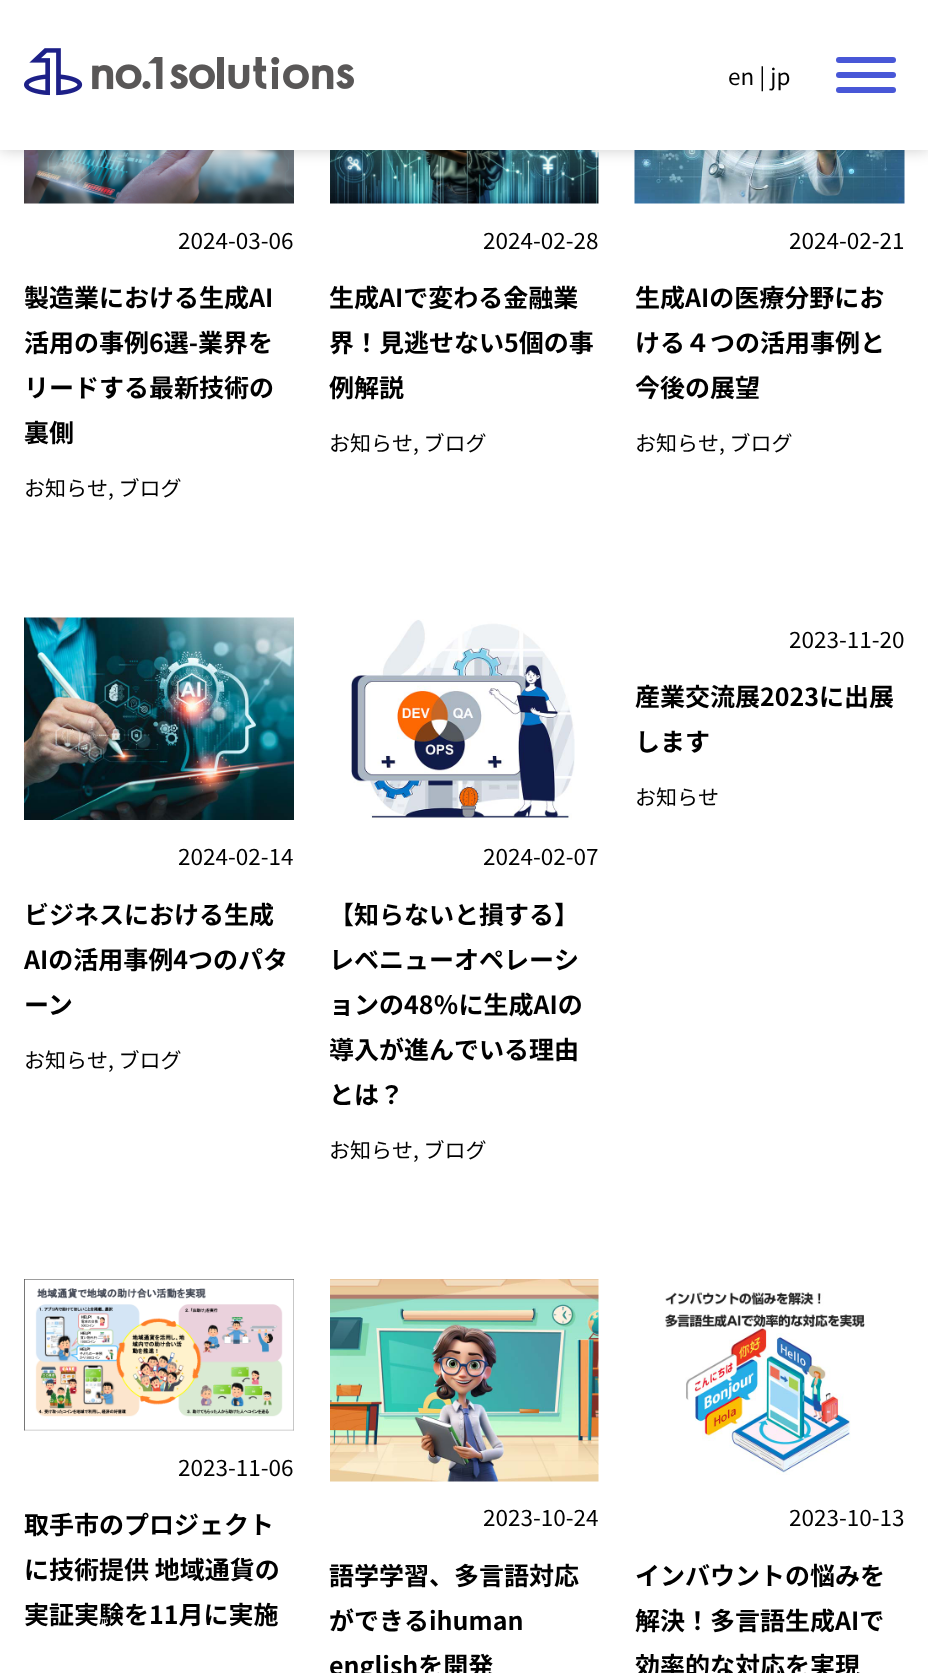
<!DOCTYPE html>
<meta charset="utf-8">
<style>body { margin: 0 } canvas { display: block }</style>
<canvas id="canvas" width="928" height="1673"></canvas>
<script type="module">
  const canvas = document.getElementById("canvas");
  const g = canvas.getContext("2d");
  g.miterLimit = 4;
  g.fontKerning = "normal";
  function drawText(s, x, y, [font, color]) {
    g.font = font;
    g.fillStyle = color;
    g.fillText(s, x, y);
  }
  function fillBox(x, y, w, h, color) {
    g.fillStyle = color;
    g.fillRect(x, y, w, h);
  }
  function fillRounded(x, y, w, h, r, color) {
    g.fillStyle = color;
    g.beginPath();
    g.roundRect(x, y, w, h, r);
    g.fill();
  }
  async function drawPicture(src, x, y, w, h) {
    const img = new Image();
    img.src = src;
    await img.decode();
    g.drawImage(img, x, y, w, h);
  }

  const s1 = ["22.5px Noto Sans JP", "#000000"];
  const s2 = ["bold 25px Noto Sans JP", "#000000"];
  const s3 = ["21px Noto Sans JP", "#000000"];

  fillBox(0, 0, 928, 1673, "#FFFFFF");
  await drawPicture("pic2.png", 24, 150, 270, 54);
  await drawPicture("pic3.png", 330, 150, 269, 54);
  await drawPicture("pic4.png", 634, 150, 271, 54);
  g.fillStyle = "rgba(0, 0, 0, 0.2)";
  g.filter = "blur(7.5px)";
  g.beginPath();
  g.rect(0, 0, 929, 150);
  g.fill();
  g.filter = "none";
  fillBox(0, 0, 928, 150, "#FFFFFF");
  await drawPicture("pic1.png", 24, 48, 330, 48);
  drawText("en | jp", 728, 85, s1);
  fillRounded(836, 57, 60, 6, 3, "#4857D7");
  fillRounded(836, 72, 60, 6, 3, "#4857D7");
  fillRounded(836, 87, 60, 6, 3, "#4857D7");
  drawText("2024-03-06", 178, 249, s1);
  drawText("製造業における生成AI", 24, 307, s2);
  drawText("活用の事例6選-業界を", 24, 352, s2);
  drawText("リードする最新技術の", 24, 397, s2);
  drawText("裏側", 24, 442, s2);
  drawText("お知らせ, ブログ", 24, 496, s3);
  drawText("2024-02-28", 483, 249, s1);
  drawText("生成AIで変わる金融業", 329, 307, s2);
  drawText("界！見逃せない5個の事", 329, 352, s2);
  drawText("例解説", 329, 397, s2);
  drawText("お知らせ, ブログ", 329, 451, s3);
  drawText("2024-02-21", 789, 249, s1);
  drawText("生成AIの医療分野にお", 635, 307, s2);
  drawText("ける４つの活用事例と", 635, 352, s2);
  drawText("今後の展望", 635, 397, s2);
  drawText("お知らせ, ブログ", 635, 451, s3);
  drawText("2023-11-20", 789, 648, s1);
  drawText("産業交流展2023に出展", 635, 706, s2);
  drawText("します", 635, 751, s2);
  drawText("お知らせ", 635, 805, s3);
  await drawPicture("pic5.png", 24, 617, 270, 203);
  drawText("2024-02-14", 178, 865, s1);
  drawText("ビジネスにおける生成", 24, 924, s2);
  drawText("AIの活用事例4つのパタ", 24, 969, s2);
  drawText("ーン", 24, 1014, s2);
  drawText("お知らせ, ブログ", 24, 1068, s3);
  await drawPicture("pic6.png", 350, 619, 225, 201);
  drawText("2024-02-07", 483, 865, s1);
  drawText("【知らないと損する】", 329, 924, s2);
  drawText("レベニューオペレーシ", 329, 969, s2);
  drawText("ョンの48％に生成AIの", 329, 1014, s2);
  drawText("導入が進んでいる理由", 329, 1059, s2);
  drawText("とは？", 329, 1104, s2);
  drawText("お知らせ, ブログ", 329, 1158, s3);
  await drawPicture("pic7.png", 24, 1279, 270, 152);
  drawText("2023-11-06", 178, 1476, s1);
  drawText("取手市のプロジェクト", 24, 1534, s2);
  drawText("に技術提供 地域通貨の", 24, 1579, s2);
  drawText("実証実験を11月に実施", 24, 1624, s2);
  await drawPicture("pic8.png", 330, 1279, 269, 203);
  drawText("2023-10-24", 483, 1526, s1);
  drawText("語学学習、多言語対応", 329, 1585, s2);
  drawText("ができるihuman", 329, 1630, s2);
  drawText("englishを開発", 329, 1675, s2);
  await drawPicture("pic9.png", 665, 1292, 200, 183);
  drawText("2023-10-13", 789, 1526, s1);
  drawText("インバウントの悩みを", 635, 1585, s2);
  drawText("解決！多言語生成AIで", 635, 1630, s2);
  drawText("効率的な対応を実現", 635, 1675, s2);
</script>
